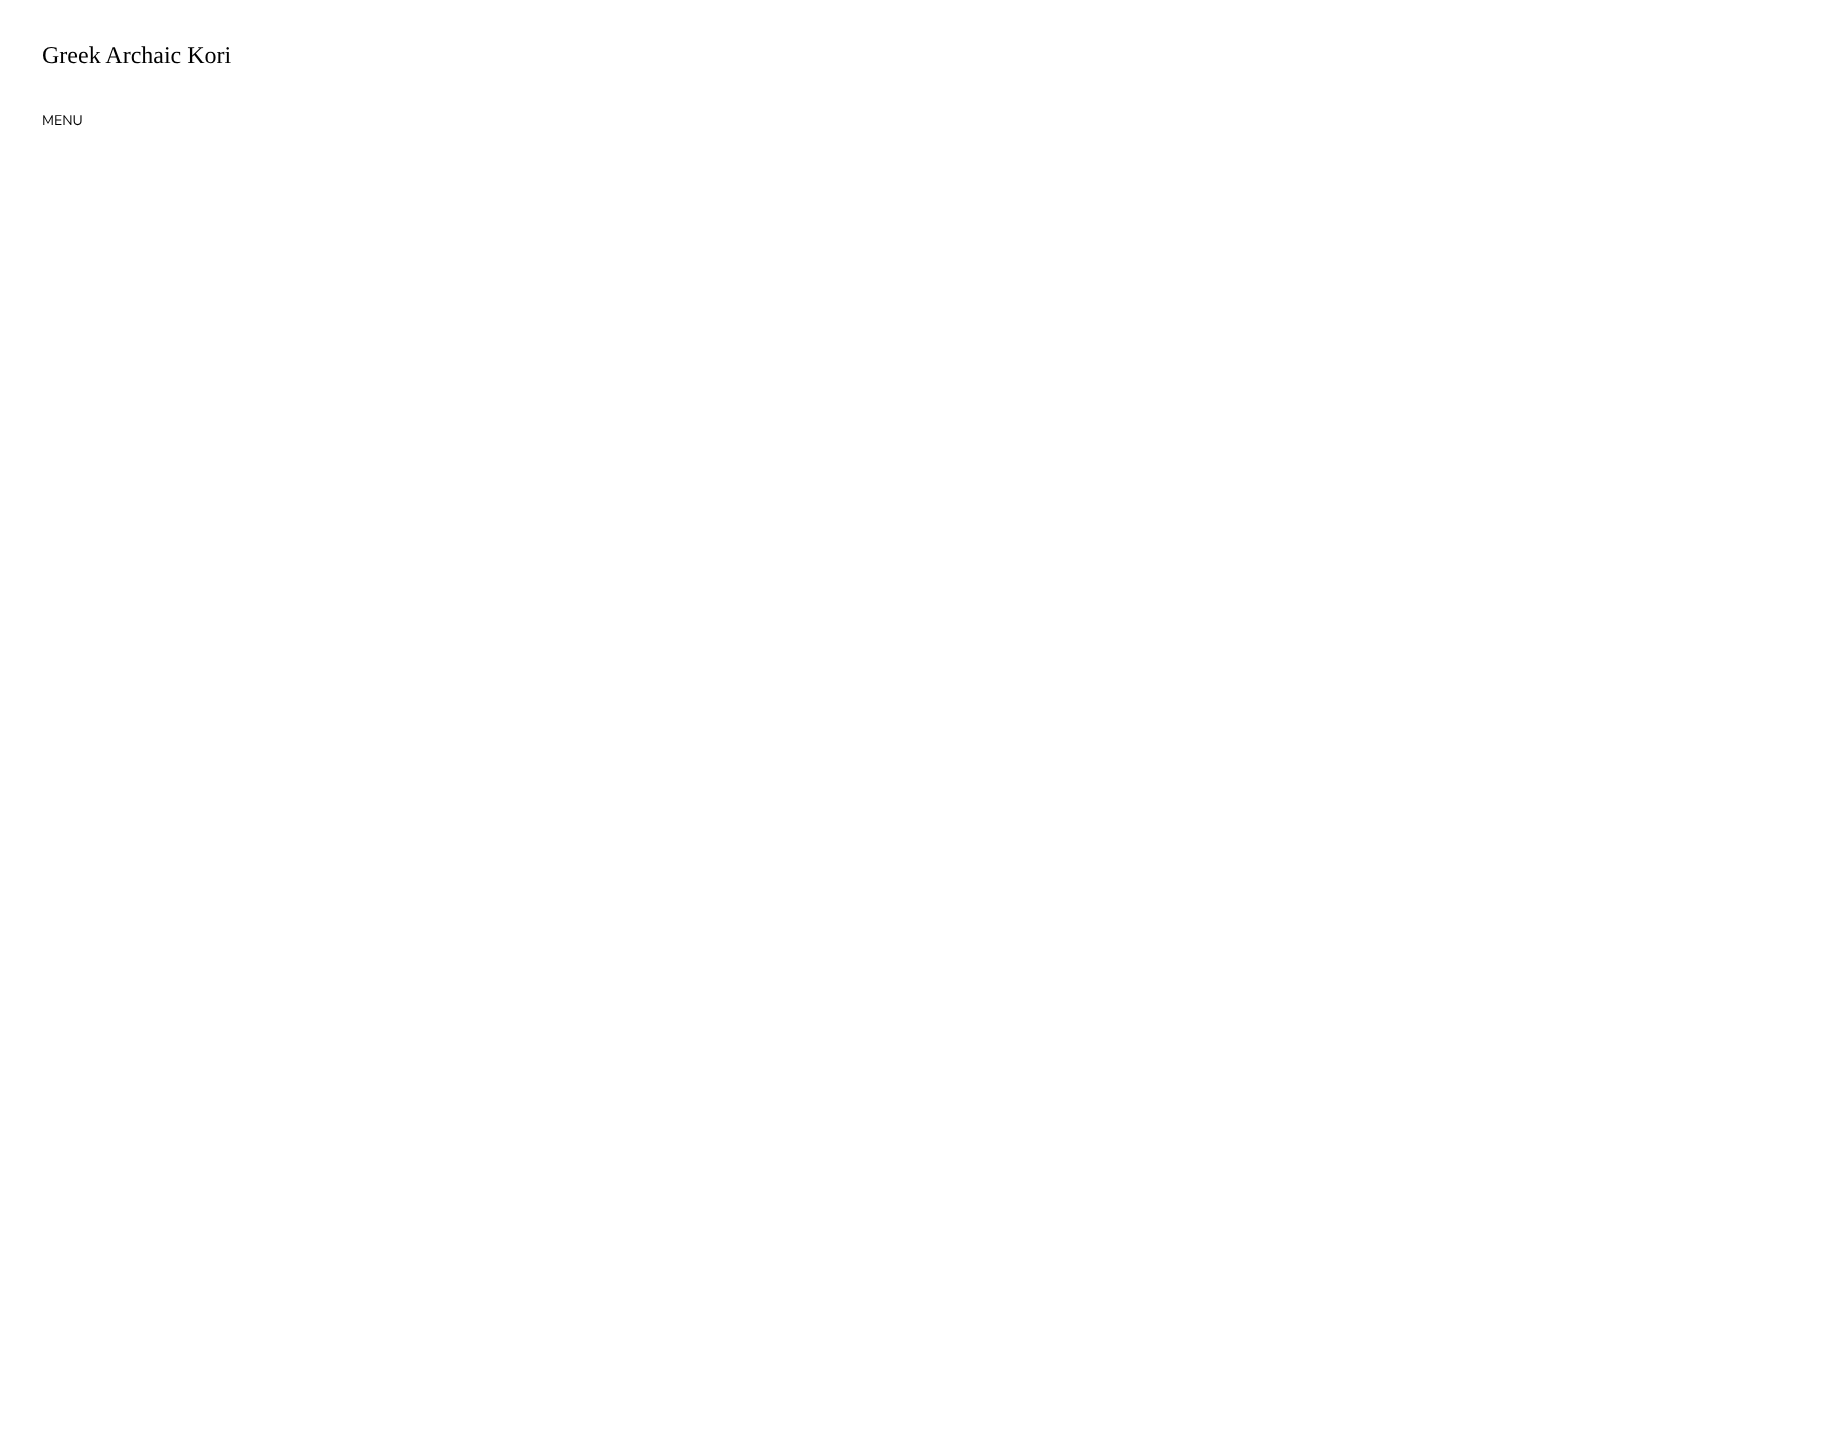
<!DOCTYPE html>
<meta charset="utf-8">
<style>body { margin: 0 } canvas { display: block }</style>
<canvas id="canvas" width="1844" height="1429"></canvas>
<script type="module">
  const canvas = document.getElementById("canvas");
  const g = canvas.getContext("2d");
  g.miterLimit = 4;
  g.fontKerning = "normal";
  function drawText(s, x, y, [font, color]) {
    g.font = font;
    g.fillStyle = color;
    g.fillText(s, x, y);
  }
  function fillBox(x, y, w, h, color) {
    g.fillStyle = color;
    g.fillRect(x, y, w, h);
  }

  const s1 = ["24px Liberation Serif", "#000000"];
  const s2 = ["14px Nunito Sans", "#000000"];

  fillBox(0, 0, 1844, 1429, "#FFFFFF");
  drawText("Greek Archaic Kori", 42, 63, s1);
  drawText("MENU", 42, 125, s2);
</script>
